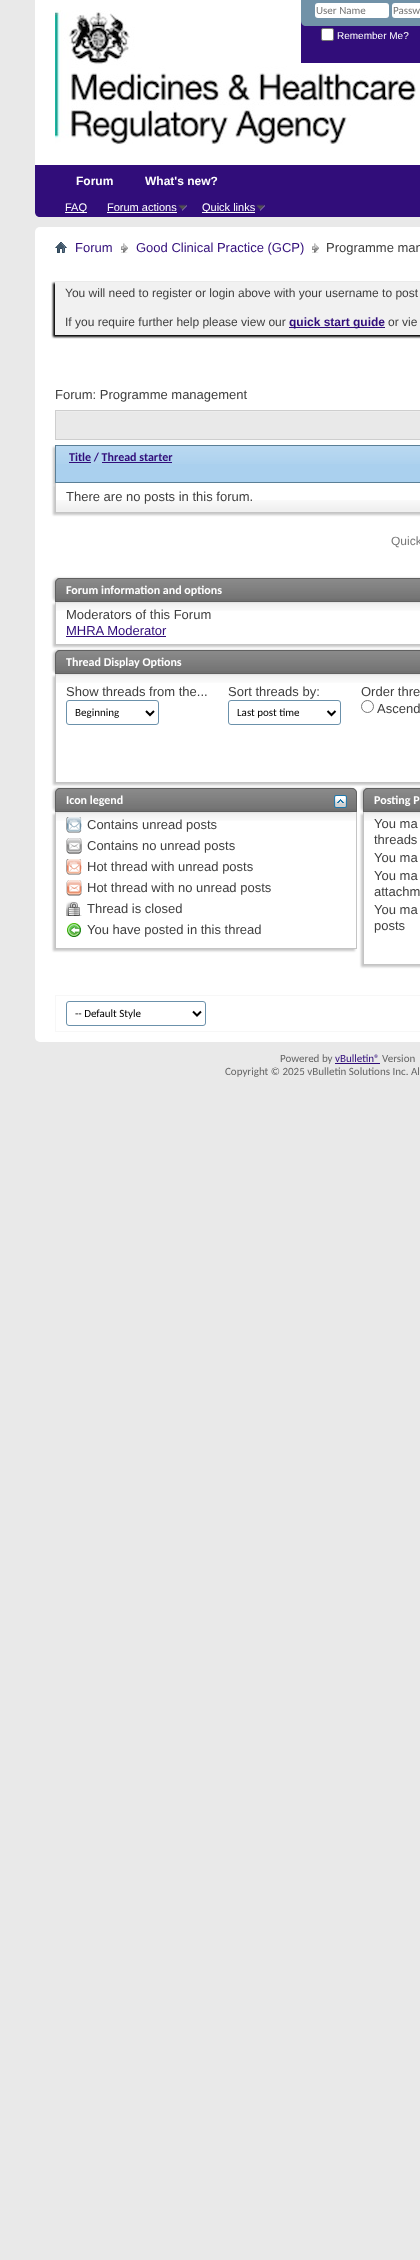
<!DOCTYPE html>
<meta charset="utf-8">
<style>body { margin: 0 } canvas { display: block }</style>
<canvas id="canvas" width="420" height="2260"></canvas>
<script type="module">
  const canvas = document.getElementById("canvas");
  const g = canvas.getContext("2d");
  g.miterLimit = 4;
  g.fontKerning = "normal";
  function drawText(s, x, y, [font, color]) {
    g.font = font;
    g.fillStyle = color;
    g.fillText(s, x, y);
  }
  function fillBox(x, y, w, h, color) {
    g.fillStyle = color;
    g.fillRect(x, y, w, h);
  }
  function fillRounded(x, y, w, h, r, color) {
    g.fillStyle = color;
    g.beginPath();
    g.roundRect(x, y, w, h, r);
    g.fill();
  }
  async function drawPicture(src, x, y, w, h) {
    const img = new Image();
    img.src = src;
    await img.decode();
    g.drawImage(img, x, y, w, h);
  }

  const s1 = ["11px Carlito", "#777777"];
  const s2 = ["10px Liberation Sans", "#FFFFFF"];
  const s3 = ["bold 12px Liberation Sans", "#FFFFFF"];
  const s4 = ["11px Liberation Sans", "#FFFFFF"];
  const s5 = ["13px Liberation Sans", "#310D7A"];
  const s6 = ["13px Liberation Sans", "#3E3E3E"];
  const s7 = ["12px Liberation Sans", "#3E3E3E"];
  const s8 = ["bold 12px Liberation Sans", "#310D7A"];
  const s9 = ["bold 12px Carlito", "#310D7A"];
  const s10 = ["12px Liberation Sans", "#777777"];
  const s11 = ["bold 12px Carlito", "#FFFFFF"];
  const s12 = ["11px Carlito", "#000000"];
  const s13 = ["11px Carlito", "#666666"];
  const s14 = ["11px Carlito", "#310D7A"];

  fillBox(0, 0, 420, 2260, "#E9E9E9");
  g.fillStyle = "#FFFFFF";
  g.beginPath();
  g.moveTo(35, 0);
  g.lineTo(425, 0);
  g.lineTo(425, 212);
  g.bezierCurveTo(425, 215, 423, 217, 420, 217);
  g.lineTo(40, 217);
  g.bezierCurveTo(37, 217, 35, 215, 35, 212);
  g.closePath();
  g.fill();
  await drawPicture("pic1.png", 55, 10, 361, 135);
  fillBox(301, 21, 119, 42, "#310D7A");
  g.fillStyle = "#7192A8";
  g.beginPath();
  g.moveTo(301, 0);
  g.lineTo(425, 0);
  g.lineTo(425, 21);
  g.bezierCurveTo(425, 24, 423, 26, 420, 26);
  g.lineTo(306, 26);
  g.bezierCurveTo(303, 26, 301, 24, 301, 21);
  g.closePath();
  g.fill();
  fillRounded(315, 3, 74, 15, 3, "#FFFFFF");
  drawText("User Name", 316, 14, s1);
  fillRounded(392, 3, 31, 15, 3, "#FFFFFF");
  drawText("Passw", 393, 14, s1);
  g.fillStyle = "#FFFFFF";
  g.beginPath();
  g.roundRect(321.5, 28.5, 12, 12, 1.5);
  g.fill();
  g.strokeStyle = "#767676";
  g.stroke();
  drawText("Remember Me?", 337, 39, s2);
  g.fillStyle = "#310D7A";
  g.beginPath();
  g.moveTo(35, 165);
  g.lineTo(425, 165);
  g.lineTo(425, 212);
  g.bezierCurveTo(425, 215, 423, 217, 420, 217);
  g.lineTo(40, 217);
  g.bezierCurveTo(37, 217, 35, 215, 35, 212);
  g.closePath();
  g.fill();
  drawText("Forum", 76, 185, s3);
  fillBox(65, 212, 22, 1, "#FFFFFF");
  drawText("FAQ", 65, 211, s4);
  drawText("Forum actions", 107, 211, s4);
  fillBox(107, 212, 70, 1, "#FFFFFF");
  await drawPicture("pic2.png", 178, 204, 9, 7);
  fillBox(202, 212, 53, 1, "#FFFFFF");
  drawText("Quick links", 202, 211, s4);
  await drawPicture("pic2.png", 256, 204, 9, 7);
  drawText("What's new?", 145, 185, s3);
  fillRounded(35, 227, 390, 815, 5, "#FFFFFF");
  await drawPicture("pic3.png", 55, 242, 12, 11);
  await drawPicture("pic4.png", 121, 243, 7, 10);
  drawText("Forum", 75, 252, s5);
  await drawPicture("pic4.png", 312, 243, 7, 10);
  drawText("Good Clinical Practice (GCP)", 136, 252, s5);
  drawText("Programme man", 326, 252, s6);
  g.fillStyle = "#000000";
  g.filter = "blur(1px)";
  g.beginPath();
  g.rect(53, 283, 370, 54);
  g.fill();
  g.filter = "none";
  fillBox(55, 282, 365, 53, "#F1F1F1");
  drawText("You will need to register or login above with your username to post", 65, 297, s7);
  drawText("If you require further help please view our", 65, 326, s7);
  fillBox(289, 327, 96, 1, "#310D7A");
  drawText("quick start guide", 289, 326, s8);
  drawText("or vie", 388, 326, s7);
  drawText("Forum: Programme management", 55, 399, s6);
  fillBox(56, 412, 364, 27, "#E9E9E9");
  fillBox(55, 411, 365, 1, "#EDEDED");
  g.strokeStyle = "#CECECE";
  g.strokeRect(55.5, 410.5, 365, 29);
  g.fillStyle = "#C8C8C8";
  g.filter = "blur(1px)";
  g.beginPath();
  g.rect(53, 447, 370, 38);
  g.fill();
  g.filter = "none";
  fillBox(56, 446, 364, 36, "#AAD0EE");
  await drawPicture("pic5.png", 56, 446, 364, 18);
  g.strokeStyle = "#5A7F97";
  g.strokeRect(55.5, 445.5, 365, 37);
  drawText("Title / Thread starter", 69, 461, s9);
  fillBox(69, 462, 22, 1, "#310D7A");
  fillBox(102, 462, 70, 1, "#310D7A");
  g.fillStyle = "#C8C8C8";
  g.filter = "blur(1px)";
  g.beginPath();
  g.rect(53, 485, 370, 30);
  g.fill();
  g.filter = "none";
  fillBox(56, 483, 364, 29, "#FFFFFF");
  await drawPicture("pic6.png", 56, 500, 364, 12);
  fillBox(55, 512, 365, 1, "#C4C4C4");
  fillBox(55, 483, 1, 30, "#C4C4C4");
  drawText("There are no posts in this forum.", 66, 501, s6);
  drawText("Quick", 391, 545, s10);
  g.save();
  g.beginPath();
  g.moveTo(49, 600);
  g.lineTo(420, 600);
  g.lineTo(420, 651);
  g.lineTo(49, 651);
  g.closePath();
  g.moveTo(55, 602);
  g.lineTo(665, 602);
  g.lineTo(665, 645);
  g.lineTo(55, 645);
  g.closePath();
  g.clip("evenodd");
  g.fillStyle = "#C8C8C8";
  g.filter = "blur(1px)";
  g.beginPath();
  g.rect(53, 604, 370, 43);
  g.fill();
  g.filter = "none";
  g.restore();
  await drawPicture("pic8.png", 56, 602, 364, 9);
  fillBox(55, 644, 365, 1, "#C4C4C4");
  fillBox(55, 602, 1, 43, "#C4C4C4");
  g.fillStyle = "#C8C8C8";
  g.filter = "blur(1px)";
  g.beginPath();
  g.roundRect(53, 578, 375, 24, 5);
  g.fill();
  g.filter = "none";
  g.fillStyle = "#707070";
  g.beginPath();
  g.moveTo(60, 578);
  g.lineTo(420, 578);
  g.bezierCurveTo(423, 578, 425, 580, 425, 583);
  g.lineTo(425, 602);
  g.lineTo(55, 602);
  g.lineTo(55, 583);
  g.bezierCurveTo(55, 580, 57, 578, 60, 578);
  g.closePath();
  g.fill();
  await drawPicture("pic7.png", 55, 579, 365, 20);
  g.beginPath();
  g.moveTo(60, 578.5);
  g.lineTo(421, 578.5);
  g.bezierCurveTo(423.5, 578.5, 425.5, 580.5, 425.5, 583);
  g.lineTo(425.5, 601.5);
  g.lineTo(55.5, 601.5);
  g.lineTo(55.5, 583);
  g.bezierCurveTo(55.5, 580.5, 57.5, 578.5, 60, 578.5);
  g.closePath();
  g.strokeStyle = "#606060";
  g.stroke();
  drawText("Forum information and options", 66, 594, s11);
  drawText("Moderators of this Forum", 66, 619, s6);
  drawText("MHRA Moderator", 66, 635, s5);
  fillBox(66, 636, 100, 1, "#310D7A");
  g.save();
  g.beginPath();
  g.moveTo(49, 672);
  g.lineTo(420, 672);
  g.lineTo(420, 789);
  g.lineTo(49, 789);
  g.closePath();
  g.moveTo(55, 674);
  g.lineTo(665, 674);
  g.lineTo(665, 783);
  g.lineTo(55, 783);
  g.closePath();
  g.clip("evenodd");
  g.fillStyle = "#C8C8C8";
  g.filter = "blur(1px)";
  g.beginPath();
  g.rect(53, 676, 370, 109);
  g.fill();
  g.filter = "none";
  g.restore();
  await drawPicture("pic8.png", 56, 674, 364, 9);
  fillBox(55, 782, 365, 1, "#C4C4C4");
  fillBox(55, 674, 1, 109, "#C4C4C4");
  g.fillStyle = "#C8C8C8";
  g.filter = "blur(1px)";
  g.beginPath();
  g.roundRect(53, 650, 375, 24, 5);
  g.fill();
  g.filter = "none";
  g.fillStyle = "#707070";
  g.beginPath();
  g.moveTo(60, 650);
  g.lineTo(420, 650);
  g.bezierCurveTo(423, 650, 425, 652, 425, 655);
  g.lineTo(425, 674);
  g.lineTo(55, 674);
  g.lineTo(55, 655);
  g.bezierCurveTo(55, 652, 57, 650, 60, 650);
  g.closePath();
  g.fill();
  await drawPicture("pic7.png", 55, 651, 365, 20);
  g.beginPath();
  g.moveTo(60, 650.5);
  g.lineTo(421, 650.5);
  g.bezierCurveTo(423.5, 650.5, 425.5, 652.5, 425.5, 655);
  g.lineTo(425.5, 673.5);
  g.lineTo(55.5, 673.5);
  g.lineTo(55.5, 655);
  g.bezierCurveTo(55.5, 652.5, 57.5, 650.5, 60, 650.5);
  g.closePath();
  g.stroke();
  drawText("Thread Display Options", 66, 666, s11);
  drawText("Show threads from the...", 66, 696, s6);
  g.beginPath();
  g.roundRect(66.5, 700.5, 92, 24, 2.5);
  g.strokeStyle = "#6B91AB";
  g.stroke();
  g.beginPath();
  g.moveTo(146, 711);
  g.lineTo(150, 715);
  g.lineTo(154, 711);
  g.strokeStyle = "#000000";
  g.lineWidth = 2;
  g.stroke();
  drawText("Beginning", 75, 716, s12);
  drawText("Sort threads by:", 228, 696, s6);
  g.beginPath();
  g.roundRect(228.5, 700.5, 112, 24, 2.5);
  g.strokeStyle = "#6B91AB";
  g.lineWidth = 1;
  g.stroke();
  g.beginPath();
  g.moveTo(327.5, 711);
  g.lineTo(331.5, 715);
  g.lineTo(335.5, 711);
  g.strokeStyle = "#000000";
  g.lineWidth = 2;
  g.stroke();
  drawText("Last post time", 237, 716, s12);
  drawText("Order thre", 361, 696, s6);
  g.beginPath();
  g.arc(367.5, 706.5, 6, 0, Math.PI * 2);
  g.strokeStyle = "#767676";
  g.lineWidth = 1;
  g.stroke();
  drawText("Ascend", 377, 713, s6);
  g.save();
  g.beginPath();
  g.moveTo(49, 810);
  g.lineTo(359, 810);
  g.lineTo(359, 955);
  g.lineTo(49, 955);
  g.closePath();
  g.moveTo(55, 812);
  g.lineTo(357, 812);
  g.lineTo(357, 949);
  g.lineTo(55, 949);
  g.closePath();
  g.clip("evenodd");
  g.fillStyle = "#C8C8C8";
  g.filter = "blur(1px)";
  g.beginPath();
  g.rect(53, 814, 302, 137);
  g.fill();
  g.filter = "none";
  g.restore();
  await drawPicture("pic11.png", 56, 812, 300, 9);
  fillBox(356, 812, 1, 137, "#C4C4C4");
  fillBox(55, 948, 302, 1, "#C4C4C4");
  fillBox(55, 812, 1, 137, "#C4C4C4");
  g.fillStyle = "#C8C8C8";
  g.filter = "blur(1px)";
  g.beginPath();
  g.roundRect(53, 788, 302, 24, 5);
  g.fill();
  g.filter = "none";
  g.fillStyle = "#707070";
  g.beginPath();
  g.roundRect(55, 788, 302, 24, [5, 5, 0, 0]);
  g.fill();
  await drawPicture("pic9.png", 55, 789, 302, 20);
  g.beginPath();
  g.roundRect(55.5, 788.5, 301, 23, [4.5, 4.5, 0, 0]);
  g.strokeStyle = "#606060";
  g.stroke();
  drawText("Icon legend", 66, 804, s11);
  await drawPicture("pic10.png", 334, 795, 13, 13);
  await drawPicture("pic12.png", 66, 817, 16, 16);
  drawText("Contains unread posts", 87, 829, s6);
  await drawPicture("pic13.png", 66, 838, 16, 16);
  drawText("Contains no unread posts", 87, 850, s6);
  await drawPicture("pic14.png", 66, 859, 16, 16);
  drawText("Hot thread with unread posts", 87, 871, s6);
  await drawPicture("pic15.png", 66, 880, 16, 16);
  drawText("Hot thread with no unread posts", 87, 892, s6);
  await drawPicture("pic16.png", 66, 901, 16, 15);
  drawText("Thread is closed", 87, 913, s6);
  await drawPicture("pic17.png", 67, 923, 14, 14);
  drawText("You have posted in this thread", 87, 934, s6);
  g.save();
  g.beginPath();
  g.moveTo(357, 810);
  g.lineTo(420, 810);
  g.lineTo(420, 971);
  g.lineTo(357, 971);
  g.closePath();
  g.moveTo(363, 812);
  g.lineTo(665, 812);
  g.lineTo(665, 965);
  g.lineTo(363, 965);
  g.closePath();
  g.clip("evenodd");
  g.fillStyle = "#C8C8C8";
  g.filter = "blur(1px)";
  g.beginPath();
  g.rect(361, 814, 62, 153);
  g.fill();
  g.filter = "none";
  g.restore();
  await drawPicture("pic19.png", 364, 812, 56, 9);
  fillBox(363, 964, 57, 1, "#C4C4C4");
  fillBox(363, 812, 1, 153, "#C4C4C4");
  g.fillStyle = "#C8C8C8";
  g.filter = "blur(1px)";
  g.beginPath();
  g.roundRect(361, 788, 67, 24, 5);
  g.fill();
  g.filter = "none";
  g.fillStyle = "#707070";
  g.beginPath();
  g.moveTo(368, 788);
  g.lineTo(420, 788);
  g.bezierCurveTo(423, 788, 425, 790, 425, 793);
  g.lineTo(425, 812);
  g.lineTo(363, 812);
  g.lineTo(363, 793);
  g.bezierCurveTo(363, 790, 365, 788, 368, 788);
  g.closePath();
  g.fill();
  await drawPicture("pic18.png", 363, 789, 57, 20);
  g.beginPath();
  g.moveTo(368, 788.5);
  g.lineTo(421, 788.5);
  g.bezierCurveTo(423.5, 788.5, 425.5, 790.5, 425.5, 793);
  g.lineTo(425.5, 811.5);
  g.lineTo(363.5, 811.5);
  g.lineTo(363.5, 793);
  g.bezierCurveTo(363.5, 790.5, 365.5, 788.5, 368, 788.5);
  g.closePath();
  g.stroke();
  drawText("Posting P", 374, 804, s11);
  drawText("You ma", 374, 828, s6);
  drawText("threads", 374, 844, s6);
  drawText("You ma", 374, 862, s6);
  drawText("You ma", 374, 880, s6);
  drawText("attachm", 374, 896, s6);
  drawText("You ma", 374, 914, s6);
  drawText("posts", 374, 930, s6);
  g.strokeStyle = "#F7F7F7";
  g.strokeRect(55.5, 995.5, 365, 36);
  g.beginPath();
  g.roundRect(66.5, 1001.5, 139, 24, 2.5);
  g.strokeStyle = "#6B91AB";
  g.stroke();
  g.beginPath();
  g.moveTo(193, 1011.5);
  g.lineTo(197, 1015.5);
  g.lineTo(201, 1011.5);
  g.strokeStyle = "#000000";
  g.lineWidth = 2;
  g.stroke();
  drawText("-- Default Style", 75, 1017, s12);
  drawText("Powered by", 280, 1062, s13);
  drawText("vBulletin®", 335, 1062, s14);
  fillBox(335, 1063, 45, 1, "#310D7A");
  drawText("Version", 382, 1062, s13);
  drawText("Copyright © 2025 vBulletin Solutions Inc. Al", 225, 1075, s13);
</script>
